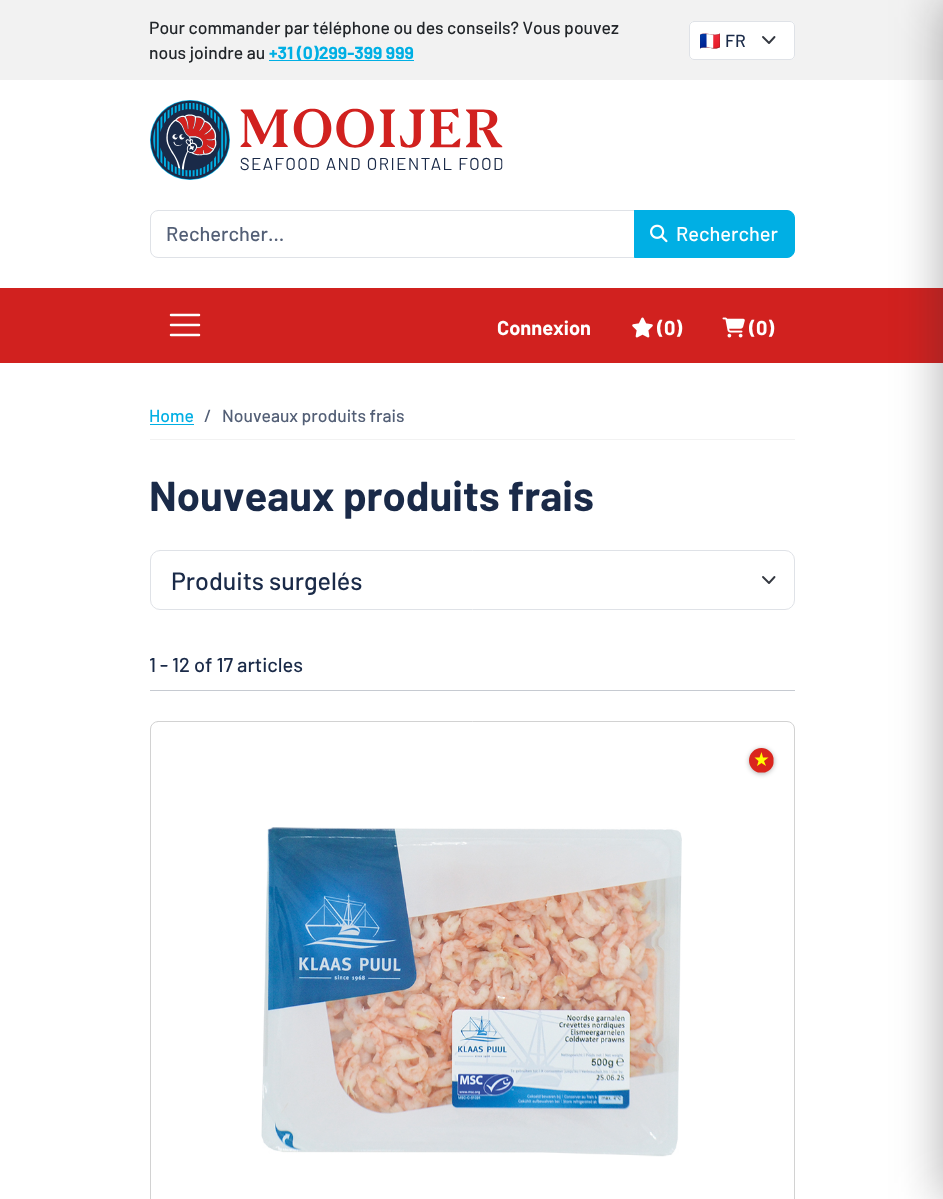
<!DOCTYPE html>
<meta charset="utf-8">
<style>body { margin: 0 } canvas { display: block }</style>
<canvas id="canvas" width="943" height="1199"></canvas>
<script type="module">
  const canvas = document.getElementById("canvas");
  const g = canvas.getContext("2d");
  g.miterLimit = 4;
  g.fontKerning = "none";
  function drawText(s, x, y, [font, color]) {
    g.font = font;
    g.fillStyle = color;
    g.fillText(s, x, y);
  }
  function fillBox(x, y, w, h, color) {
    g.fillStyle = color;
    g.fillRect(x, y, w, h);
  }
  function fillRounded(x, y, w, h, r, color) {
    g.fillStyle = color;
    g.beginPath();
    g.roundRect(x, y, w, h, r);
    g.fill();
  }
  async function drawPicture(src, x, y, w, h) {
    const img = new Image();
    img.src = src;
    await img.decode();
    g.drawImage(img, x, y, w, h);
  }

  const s1 = ["500 17.5px Barlow", "#212529"];
  const s2 = ["bold 17.5px Barlow", "#00AFE4"];
  const s3 = ["17.5px Noto Color Emoji", "#1A2A48"];
  const s4 = ["500 17.5px Barlow", "#1A2A48"];
  const s5 = ["500 20px Barlow", "#535F76"];
  const s6 = ["500 20px Barlow", "#FFFFFF"];
  const s7 = ["bold 20px Barlow", "#FFFFFF"];
  const s8 = ["500 17.5px Barlow", "#00AFE4"];
  const s9 = ["500 17.5px Barlow", "#535F76"];
  const s10 = ["bold 41.75px Barlow", "#1A2A48"];
  const s11 = ["500 25px Barlow", "#1A2A48"];
  const s12 = ["500 20px Barlow", "#1A2A48"];

  fillBox(0, 0, 943, 1199, "#FFFFFF");
  fillBox(0, 0, 943, 80, "#F2F2F2");
  drawText("Pour commander par téléphone ou des conseils? Vous pouvez", 149, 34, s1);
  drawText("nous joindre au", 149, 59, s1);
  fillBox(269, 60, 145, 1, "#00AFE4");
  drawText("+31 (0)299-399 999", 269, 59, s2);
  fillRounded(689, 21, 106, 39, 5, "#FFFFFF");
  g.beginPath();
  g.moveTo(763, 37);
  g.lineTo(769, 43);
  g.lineTo(774.5, 37);
  g.strokeStyle = "#353941";
  g.lineWidth = 1.9;
  g.lineCap = "round";
  g.lineJoin = "round";
  g.stroke();
  g.beginPath();
  g.roundRect(689.5, 21.5, 105, 38, 4.5);
  g.strokeStyle = "#DFE2E7";
  g.lineWidth = 1;
  g.lineJoin = "miter";
  g.stroke();
  g.save();
  g.beginPath();
  g.rect(700, 28, 49, 26);
  g.clip();
  drawText("🇫🇷", 699, 47, s3);
  g.restore();
  drawText("FR", 725, 47, s4);
  fillBox(0, 288, 943, 75, "#D1211F");
  g.fillStyle = "rgba(49, 47, 51, 0.4)";
  g.filter = "blur(25px)";
  g.beginPath();
  g.rect(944, 0, 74, 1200);
  g.fill();
  g.filter = "none";
  await drawPicture("pic1.png", 150, 100, 353, 80);
  g.beginPath();
  g.roundRect(150.5, 210.5, 484, 47, [7.5, 0, 0, 7.5]);
  g.stroke();
  drawText("Rechercher…", 166, 241, s5);
  g.fillStyle = "#00AFE4";
  g.beginPath();
  g.roundRect(634.5, 210.5, 160, 47, [0, 7.5, 7.5, 0]);
  g.fill();
  g.strokeStyle = "#00AFE4";
  g.stroke();
  await drawPicture("pic2.png", 650, 224, 18, 19);
  drawText("Rechercher", 676, 241, s6);
  g.beginPath();
  g.moveTo(171, 315);
  g.lineTo(199, 315);
  g.moveTo(171, 325);
  g.lineTo(199, 325);
  g.moveTo(171, 335);
  g.lineTo(199, 335);
  g.strokeStyle = "#FFFFFF";
  g.lineWidth = 2.5;
  g.stroke();
  drawText("Connexion", 497, 335, s7);
  await drawPicture("pic3.png", 632, 317, 21, 21);
  drawText("(0)", 657, 335, s7);
  await drawPicture("pic4.png", 722, 317, 23, 21);
  drawText("(0)", 749, 335, s7);
  fillBox(150, 439, 645, 1, "#F2F2F2");
  drawText("Home", 149, 422, s8);
  fillBox(150, 424, 44, 1, "#00AFE4");
  drawText("/", 204, 422, s9);
  drawText("Nouveaux produits frais", 222, 422, s9);
  drawText("Nouveaux produits frais", 149, 511, s10);
  g.beginPath();
  g.moveTo(763, 577);
  g.lineTo(769, 583);
  g.lineTo(774.5, 577);
  g.strokeStyle = "#353941";
  g.lineWidth = 1.9;
  g.lineJoin = "round";
  g.stroke();
  g.beginPath();
  g.roundRect(150.5, 550.5, 644, 59, 9.5);
  g.strokeStyle = "#DFE2E7";
  g.lineWidth = 1;
  g.lineJoin = "miter";
  g.stroke();
  drawText("Produits surgelés", 171, 590, s11);
  drawText("1 - 12 of 17 articles", 149, 672, s12);
  fillBox(150, 690, 645, 1, "#C6CAD1");
  g.beginPath();
  g.roundRect(150.5, 721.5, 644, 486, 7.5);
  g.strokeStyle = "#D2D2D2";
  g.stroke();
  g.fillStyle = "rgba(0, 0, 0, 0.3)";
  g.filter = "blur(2.5px)";
  g.beginPath();
  g.roundRect(749, 749, 25, 25, 12.5);
  g.fill();
  g.filter = "none";
  g.fillStyle = "#DA251D";
  g.beginPath();
  g.moveTo(761.5, 748);
  g.bezierCurveTo(767.5, 748, 772.5, 752.5, 773.5, 758);
  g.lineTo(773.5, 763);
  g.bezierCurveTo(773, 767.5, 769.5, 771, 765, 772.5);
  g.lineTo(758, 772.5);
  g.bezierCurveTo(753, 771, 749, 766, 749, 760.5);
  g.bezierCurveTo(749, 753.5, 754.5, 748, 761.5, 748);
  g.closePath();
  g.fill();
  g.fillStyle = "#FFFF00";
  g.beginPath();
  g.moveTo(766, 766);
  g.lineTo(761.5, 763);
  g.lineTo(757, 766);
  g.lineTo(758.5, 761);
  g.lineTo(754.5, 757.5);
  g.lineTo(759.5, 757.5);
  g.lineTo(761.5, 752);
  g.lineTo(763, 757.5);
  g.lineTo(768.5, 757.5);
  g.lineTo(764, 761);
  g.closePath();
  g.fill("evenodd");
  await drawPicture("pic5.png", 261, 827, 421, 330);
</script>
